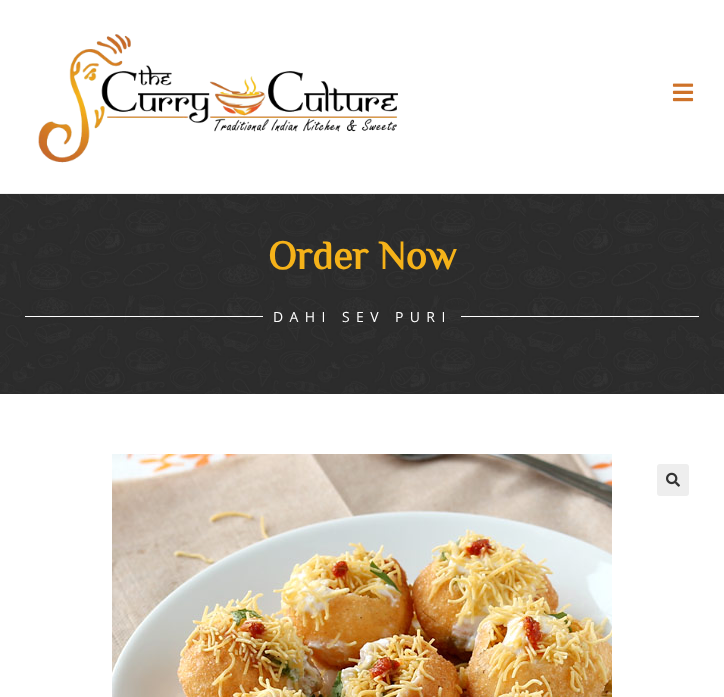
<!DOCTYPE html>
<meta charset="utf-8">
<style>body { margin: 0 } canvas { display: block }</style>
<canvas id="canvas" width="724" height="697"></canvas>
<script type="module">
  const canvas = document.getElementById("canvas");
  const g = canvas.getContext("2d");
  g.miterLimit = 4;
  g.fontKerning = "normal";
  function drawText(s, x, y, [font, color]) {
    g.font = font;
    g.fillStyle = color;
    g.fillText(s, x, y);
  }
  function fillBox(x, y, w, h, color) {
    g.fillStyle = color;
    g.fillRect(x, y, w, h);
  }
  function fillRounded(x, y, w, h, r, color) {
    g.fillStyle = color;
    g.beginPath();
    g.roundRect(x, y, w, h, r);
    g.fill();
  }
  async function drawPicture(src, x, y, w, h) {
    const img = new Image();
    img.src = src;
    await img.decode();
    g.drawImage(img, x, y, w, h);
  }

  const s1 = ["bold 40px ZCOOL XiaoWei", "#F5B219"];
  const s2 = ["14px Open Sans", "#FFFFFF"];

  fillBox(0, 0, 724, 697, "#FFFFFF");
  fillBox(0, 193, 724, 1, "#F1F1F1");
  await drawPicture("pic1.png", 38, 34, 361, 129);
  await drawPicture("pic2.png", 672, 83, 22, 19);
  await drawPicture("pic3.png", 0, 194, 724, 200);
  drawText("Order Now", 268, 269, s1);
  fillBox(25, 316, 238, 1, "#FFFFFF");
  g.letterSpacing = "6.4px";
  drawText("DAHI SEV PURI", 273, 322, s2);
  fillBox(461, 316, 238, 1, "#FFFFFF");
  await drawPicture("pic4.png", 112, 454, 500, 243);
  fillRounded(657, 464, 32, 32, 3, "#EEEEEE");
  await drawPicture("pic5.png", 666, 472, 14, 15);
</script>
